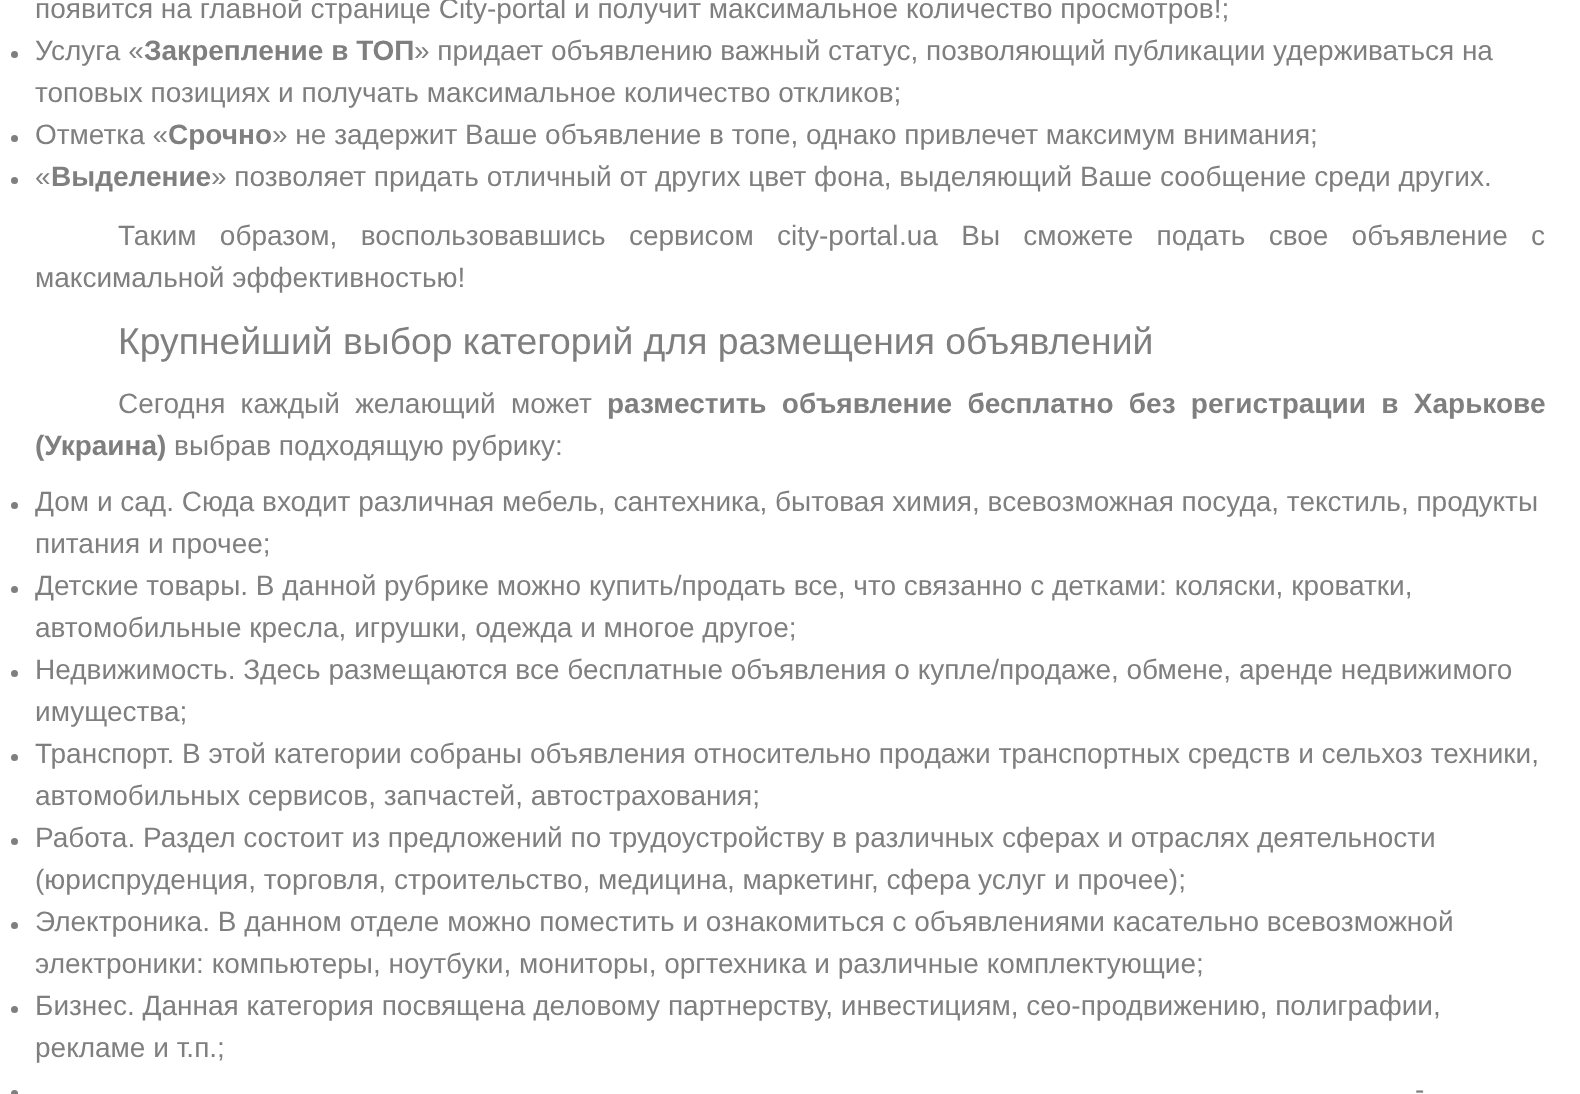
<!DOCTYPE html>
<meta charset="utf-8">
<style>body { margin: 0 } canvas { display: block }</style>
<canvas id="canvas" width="1580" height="1094"></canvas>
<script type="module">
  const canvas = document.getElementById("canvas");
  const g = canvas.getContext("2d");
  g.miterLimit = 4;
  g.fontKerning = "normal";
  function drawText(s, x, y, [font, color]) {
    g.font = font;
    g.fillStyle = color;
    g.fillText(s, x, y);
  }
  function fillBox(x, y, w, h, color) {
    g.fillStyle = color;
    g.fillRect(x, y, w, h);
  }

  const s1 = ["28px Liberation Sans", "#7F7F7F"];
  const s2 = ["bold 28px Liberation Sans", "#7F7F7F"];
  const s3 = ["37.3px Liberation Sans", "#7F7F7F"];

  fillBox(0, 0, 1580, 1094, "#FFFFFF");
  drawText("появится на главной странице City-portal и получит максимальное количество просмотров!;", 35, 18, s1);
  g.beginPath();
  g.arc(14.5, 54.5, 3.5, 0, Math.PI * 2);
  g.fill();
  drawText("Услуга «", 35, 60, s1);
  drawText("Закрепление в ТОП", 144, 60, s2);
  drawText("» придает объявлению важный статус, позволяющий публикации удерживаться на", 414, 60, s1);
  drawText("топовых позициях и получать максимальное количество откликов;", 35, 102, s1);
  g.beginPath();
  g.arc(14.5, 138.5, 3.5, 0, Math.PI * 2);
  g.fill();
  drawText("Отметка «", 35, 144, s1);
  drawText("Срочно", 168, 144, s2);
  drawText("» не задержит Ваше объявление в топе, однако привлечет максимум внимания;", 272, 144, s1);
  g.beginPath();
  g.arc(14.5, 180.5, 3.5, 0, Math.PI * 2);
  g.fill();
  drawText("«", 35, 186, s1);
  drawText("Выделение", 51, 186, s2);
  drawText("» позволяет придать отличный от других цвет фона, выделяющий Ваше сообщение среди других.", 211, 186, s1);
  g.wordSpacing = "15.5px";
  drawText("Таким образом, воспользовавшись сервисом", 118, 245, s1);
  g.wordSpacing = "0px";
  drawText("city-portal", 777, 245, s1);
  g.wordSpacing = "15.5px";
  drawText(".ua Вы сможете подать свое объявление с", 899, 245, s1);
  g.wordSpacing = "0px";
  drawText("максимальной эффективностью!", 35, 287, s1);
  drawText("Крупнейший выбор категорий для размещения объявлений", 118, 354, s3);
  g.wordSpacing = "7.5px";
  drawText("Сегодня каждый желающий может", 118, 413, s1);
  drawText("разместить объявление бесплатно без регистрации в Харькове", 607, 413, s2);
  g.wordSpacing = "0px";
  drawText("(Украина)", 35, 455, s2);
  drawText("выбрав подходящую рубрику:", 174, 455, s1);
  g.beginPath();
  g.arc(14.5, 505.5, 3.5, 0, Math.PI * 2);
  g.fill();
  drawText("Дом и сад. Сюда входит различная мебель, сантехника, бытовая химия, всевозможная посуда, текстиль, продукты", 35, 511, s1);
  drawText("питания и прочее;", 35, 553, s1);
  g.beginPath();
  g.arc(14.5, 589.5, 3.5, 0, Math.PI * 2);
  g.fill();
  drawText("Детские товары. В данной рубрике можно купить/продать все, что связанно с детками: коляски, кроватки,", 35, 595, s1);
  drawText("автомобильные кресла, игрушки, одежда и многое другое;", 35, 637, s1);
  g.beginPath();
  g.arc(14.5, 673.5, 3.5, 0, Math.PI * 2);
  g.fill();
  drawText("Недвижимость. Здесь размещаются все бесплатные объявления о купле/продаже, обмене, аренде недвижимого", 35, 679, s1);
  drawText("имущества;", 35, 721, s1);
  g.beginPath();
  g.arc(14.5, 757.5, 3.5, 0, Math.PI * 2);
  g.fill();
  drawText("Транспорт. В этой категории собраны объявления относительно продажи транспортных средств и сельхоз техники,", 35, 763, s1);
  drawText("автомобильных сервисов, запчастей, автострахования;", 35, 805, s1);
  g.beginPath();
  g.arc(14.5, 841.5, 3.5, 0, Math.PI * 2);
  g.fill();
  drawText("Работа. Раздел состоит из предложений по трудоустройству в различных сферах и отраслях деятельности", 35, 847, s1);
  drawText("(юриспруденция, торговля, строительство, медицина, маркетинг, сфера услуг и прочее);", 35, 889, s1);
  g.beginPath();
  g.arc(14.5, 925.5, 3.5, 0, Math.PI * 2);
  g.fill();
  drawText("Электроника. В данном отделе можно поместить и ознакомиться с объявлениями касательно всевозможной", 35, 931, s1);
  drawText("электроники: компьютеры, ноутбуки, мониторы, оргтехника и различные комплектующие;", 35, 973, s1);
  g.beginPath();
  g.arc(14.5, 1009.5, 3.5, 0, Math.PI * 2);
  g.fill();
  drawText("Бизнес. Данная категория посвящена деловому партнерству, инвестициям, сео-продвижению, полиграфии,", 35, 1015, s1);
  drawText("рекламе и т.п.;", 35, 1057, s1);
  g.beginPath();
  g.arc(14.5, 1093.5, 3.5, 0, Math.PI * 2);
  g.fill();
  drawText("-", 1415, 1099, s1);
</script>
